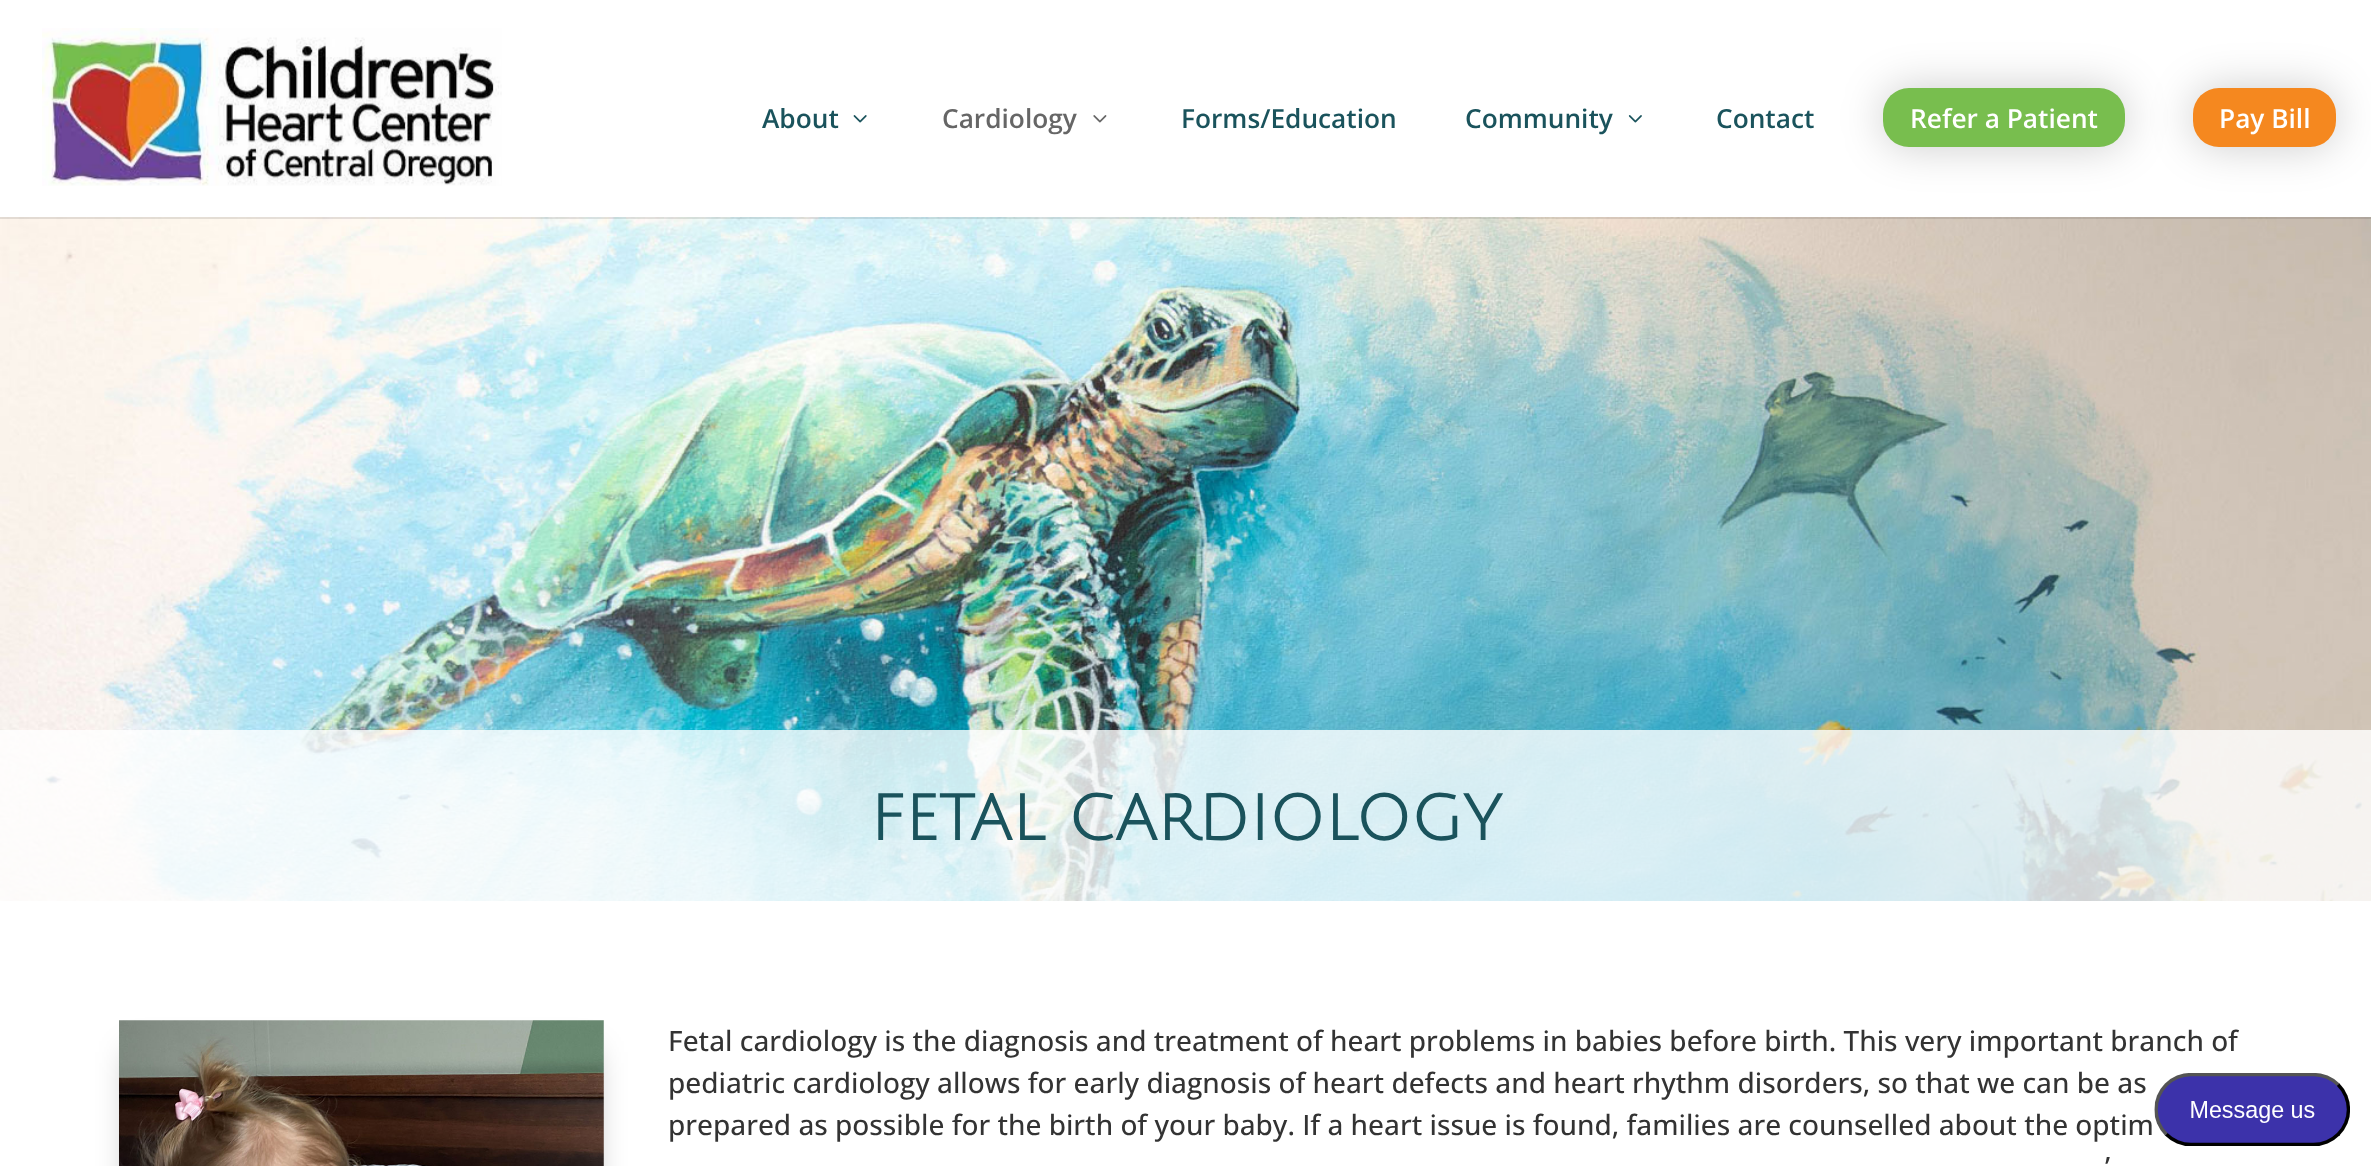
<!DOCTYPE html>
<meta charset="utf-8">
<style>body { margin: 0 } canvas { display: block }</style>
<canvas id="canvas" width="2371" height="1166"></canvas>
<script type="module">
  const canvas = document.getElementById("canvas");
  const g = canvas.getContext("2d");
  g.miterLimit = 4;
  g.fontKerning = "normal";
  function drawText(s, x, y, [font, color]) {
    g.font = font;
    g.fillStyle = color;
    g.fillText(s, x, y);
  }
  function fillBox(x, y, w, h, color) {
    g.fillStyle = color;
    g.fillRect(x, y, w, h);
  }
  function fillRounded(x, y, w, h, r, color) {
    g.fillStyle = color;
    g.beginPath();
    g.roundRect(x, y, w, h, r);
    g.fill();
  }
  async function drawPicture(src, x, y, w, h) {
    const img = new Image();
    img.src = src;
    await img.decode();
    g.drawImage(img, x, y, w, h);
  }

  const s1 = ["600 26.25px Open Sans", "#1A535C"];
  const s2 = ["600 26.25px Open Sans", "#666666"];
  const s3 = ["600 26.25px Open Sans", "#FFFFFF"];
  const s4 = ["bold 63px Julius Sans One", "#1A535C"];
  const s5 = ["500 28px Open Sans", "#333333"];

  fillBox(0, 0, 2371, 1166, "#FFFFFF");
  await drawPicture("pic5.png", 0, 217, 2371, 684);
  fillBox(0, 217, 2371, 2, "rgba(0, 0, 0, 0.1)");
  await drawPicture("pic1.png", 42, 28, 460, 158);
  drawText("About", 762, 128, s1);
  await drawPicture("pic2.png", 853, 115, 14, 8);
  drawText("Cardiology", 942, 128, s2);
  await drawPicture("pic3.png", 1093, 115, 14, 8);
  drawText("Forms/Education", 1181, 128, s1);
  drawText("Community", 1465, 128, s1);
  await drawPicture("pic4.png", 1628, 115, 14, 8);
  drawText("Contact", 1716, 128, s1);
  g.fillStyle = "rgba(0, 0, 0, 0.2)";
  g.filter = "blur(22px)";
  g.beginPath();
  g.roundRect(1883, 88, 242, 59, 26);
  g.fill();
  g.filter = "none";
  fillRounded(1883, 88, 242, 59, 26, "#78BE4E");
  drawText("Refer a Patient", 1910, 128, s3);
  g.fillStyle = "rgba(0, 0, 0, 0.2)";
  g.filter = "blur(22px)";
  g.beginPath();
  g.roundRect(2193, 88, 143, 59, 26);
  g.fill();
  g.filter = "none";
  fillRounded(2193, 88, 143, 59, 26, "#F5881F");
  drawText("Pay Bill", 2219, 128, s3);
  fillBox(0, 730, 2371, 171, "rgba(255, 255, 255, 0.8)");
  drawText("FETAL CARDIOLOGY", 870, 840, s4);
  g.fillStyle = "rgba(0, 0, 0, 0.3)";
  g.filter = "blur(16px)";
  g.beginPath();
  g.rect(130, 1052, 463, 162);
  g.fill();
  g.filter = "none";
  await drawPicture("pic6.png", 119, 1020, 485, 146);
  drawText("Fetal cardiology is the diagnosis and treatment of heart problems in babies before birth. This very important branch of", 668, 1051, s5);
  drawText("pediatric cardiology allows for early diagnosis of heart defects and heart rhythm disorders, so that we can be as", 668, 1093, s5);
  drawText("prepared as possible for the birth of your baby. If a heart issue is found, families are counselled about the optim", 668, 1135, s5);
  drawText("’", 2105, 1177, s5);
  await drawPicture("pic7.png", 2154, 1073, 196, 73);
</script>
